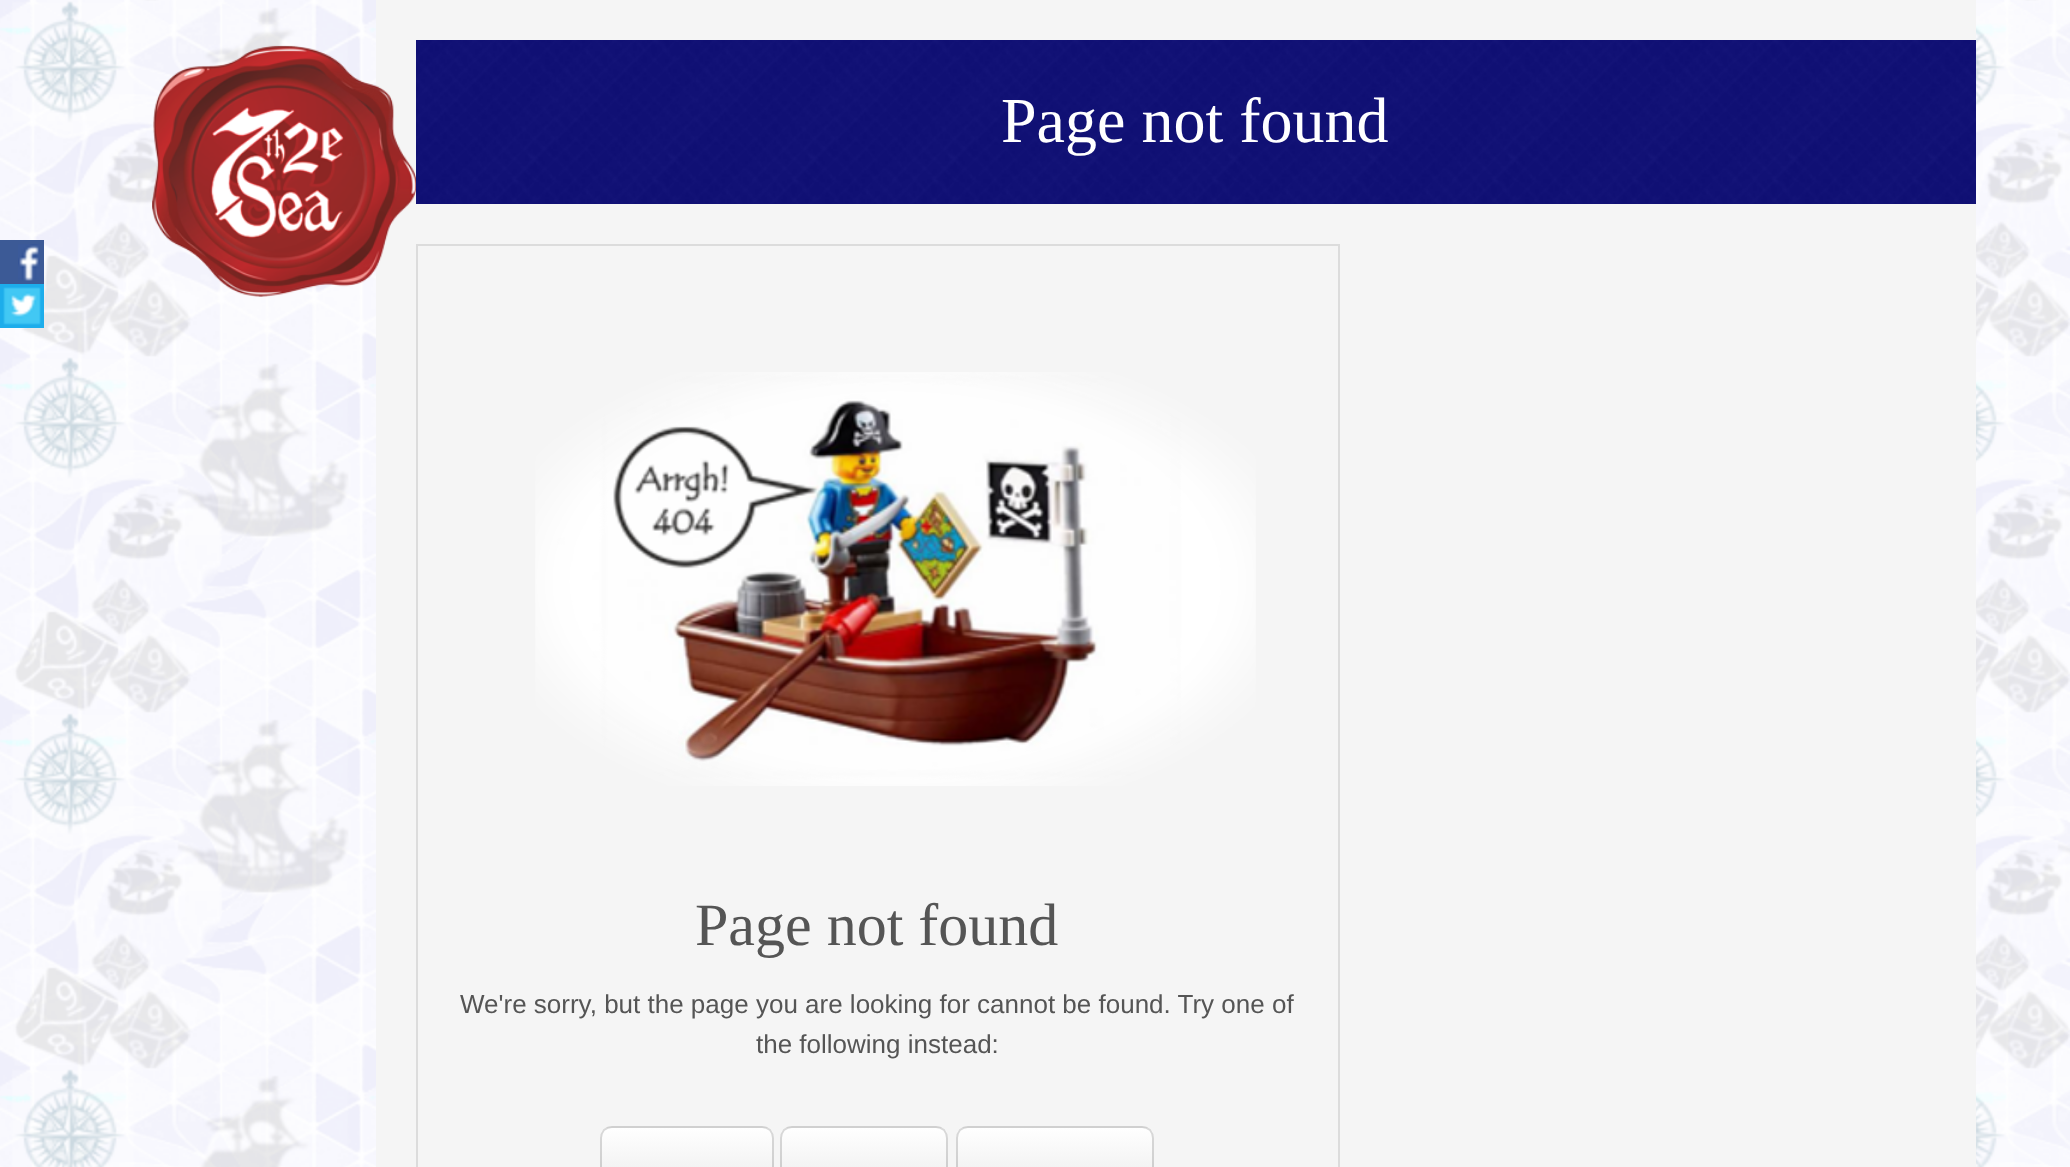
<!DOCTYPE html>
<meta charset="utf-8">
<style>body { margin: 0 } canvas { display: block }</style>
<canvas id="canvas" width="2070" height="1167"></canvas>
<script type="module">
  const canvas = document.getElementById("canvas");
  const g = canvas.getContext("2d");
  g.miterLimit = 4;
  g.fontKerning = "normal";
  function drawText(s, x, y, [font, color]) {
    g.font = font;
    g.fillStyle = color;
    g.fillText(s, x, y);
  }
  function fillBox(x, y, w, h, color) {
    g.fillStyle = color;
    g.fillRect(x, y, w, h);
  }
  async function drawPicture(src, x, y, w, h) {
    const img = new Image();
    img.src = src;
    await img.decode();
    g.drawImage(img, x, y, w, h);
  }
  let gradient;

  const s1 = ["64px Liberation Serif", "#FFFFFF"];
  const s2 = ["60px Liberation Serif", "#555555"];
  const s3 = ["26px Liberation Sans", "#555555"];

  fillBox(0, 0, 2070, 1167, "#FFFFFF");
  await drawPicture("pic1.png", 0, 0, 2070, 1167);
  fillBox(0, 240, 44, 44, "#3C5A96");
  await drawPicture("pic2.png", 18, 244, 22, 37);
  fillBox(0, 284, 44, 44, "#1DADEB");
  await drawPicture("pic3.png", 3, 287, 38, 38);
  fillBox(376, 0, 1600, 1167, "#F5F5F5");
  await drawPicture("pic4.png", 152, 45, 264, 252);
  await drawPicture("pic5.png", 416, 40, 1560, 164);
  drawText("Page not found", 1001, 142, s1);
  g.strokeStyle = "#DCDCDC";
  g.lineWidth = 2;
  g.strokeRect(417, 245, 922, 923);
  await drawPicture("pic6.png", 535, 372, 721, 414);
  drawText("Page not found", 695, 945, s2);
  drawText("We're sorry, but the page you are looking for cannot be found. Try one of", 460, 1013, s3);
  drawText("the following instead:", 756, 1053, s3);
  g.save();
  g.beginPath();
  g.roundRect(600, 1126, 174, 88, 12);
  g.clip();
  gradient = g.createLinearGradient(687, 1128, 687, 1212);
  gradient.addColorStop(0, "#FFFFFF");
  gradient.addColorStop(1, "#E6E6E6");
  g.fillStyle = gradient;
  g.fillRect(600, 1128, 174, 39);
  g.restore();
  g.beginPath();
  g.moveTo(604, 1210);
  g.bezierCurveTo(602, 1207.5, 601, 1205, 601, 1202);
  g.lineTo(601, 1138);
  g.bezierCurveTo(601, 1135, 602, 1132.5, 604, 1130);
  g.bezierCurveTo(606.5, 1128, 609, 1127, 612, 1127);
  g.lineTo(762, 1127);
  g.bezierCurveTo(765, 1127, 767.5, 1128, 770, 1130);
  g.bezierCurveTo(772, 1132.5, 773, 1135, 773, 1138);
  g.lineTo(773, 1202);
  g.bezierCurveTo(773, 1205, 772, 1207.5, 770, 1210);
  g.strokeStyle = "rgba(0, 0, 0, 0.15)";
  g.stroke();
  g.save();
  g.beginPath();
  g.roundRect(780, 1126, 168, 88, 12);
  g.clip();
  gradient = g.createLinearGradient(864, 1128, 864, 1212);
  gradient.addColorStop(0, "#FFFFFF");
  gradient.addColorStop(1, "#E6E6E6");
  g.fillStyle = gradient;
  g.fillRect(780, 1128, 168, 39);
  g.restore();
  g.beginPath();
  g.moveTo(784, 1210);
  g.bezierCurveTo(782, 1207.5, 781, 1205, 781, 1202);
  g.lineTo(781, 1138);
  g.bezierCurveTo(781, 1135, 782, 1132.5, 784, 1130);
  g.bezierCurveTo(786.5, 1128, 789, 1127, 792, 1127);
  g.lineTo(936, 1127);
  g.bezierCurveTo(939, 1127, 941.5, 1128, 944, 1130);
  g.bezierCurveTo(946, 1132.5, 947, 1135, 947, 1138);
  g.lineTo(947, 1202);
  g.bezierCurveTo(947, 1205, 946, 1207.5, 944, 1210);
  g.stroke();
  g.save();
  g.beginPath();
  g.roundRect(956, 1126, 198, 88, 12);
  g.clip();
  gradient = g.createLinearGradient(1055, 1128, 1055, 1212);
  gradient.addColorStop(0, "#FFFFFF");
  gradient.addColorStop(1, "#E6E6E6");
  g.fillStyle = gradient;
  g.fillRect(956, 1128, 198, 39);
  g.restore();
  g.beginPath();
  g.moveTo(960, 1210);
  g.bezierCurveTo(958, 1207.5, 957, 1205, 957, 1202);
  g.lineTo(957, 1138);
  g.bezierCurveTo(957, 1135, 958, 1132.5, 960, 1130);
  g.bezierCurveTo(962.5, 1128, 965, 1127, 968, 1127);
  g.lineTo(1142, 1127);
  g.bezierCurveTo(1145, 1127, 1147.5, 1128, 1150, 1130);
  g.bezierCurveTo(1152, 1132.5, 1153, 1135, 1153, 1138);
  g.lineTo(1153, 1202);
  g.bezierCurveTo(1153, 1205, 1152, 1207.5, 1150, 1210);
  g.stroke();
</script>
